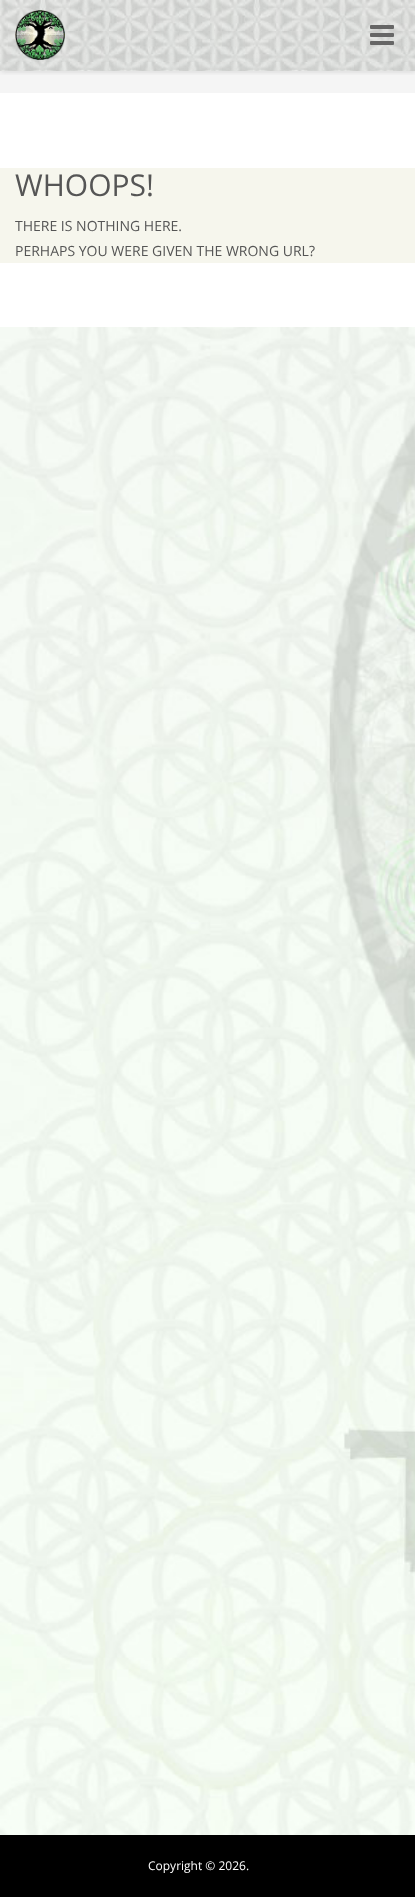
<!DOCTYPE html>
<meta charset="utf-8">
<style>body { margin: 0 } canvas { display: block }</style>
<canvas id="canvas" width="415" height="1897"></canvas>
<script type="module">
  const canvas = document.getElementById("canvas");
  const g = canvas.getContext("2d");
  g.miterLimit = 4;
  g.fontKerning = "normal";
  function drawText(s, x, y, [font, color]) {
    g.font = font;
    g.fillStyle = color;
    g.fillText(s, x, y);
  }
  function fillBox(x, y, w, h, color) {
    g.fillStyle = color;
    g.fillRect(x, y, w, h);
  }
  async function drawPicture(src, x, y, w, h) {
    const img = new Image();
    img.src = src;
    await img.decode();
    g.drawImage(img, x, y, w, h);
  }

  const s1 = ["30px Open Sans", "#555555"];
  const s2 = ["14px Open Sans", "#555555"];
  const s3 = ["12px Open Sans", "#FFFFFF"];

  fillBox(0, 0, 415, 1897, "#FFFFFF");
  await drawPicture("pic1.png", 0, 0, 415, 1835);
  fillBox(0, 71, 415, 22, "#F5F5F5");
  g.save();
  g.beginPath();
  g.rect(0, 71, 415, 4);
  g.clip();
  g.fillStyle = "rgba(100, 100, 100, 0.2)";
  g.filter = "blur(2.5px)";
  g.beginPath();
  g.rect(1, 1, 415, 71);
  g.fill();
  g.filter = "none";
  g.restore();
  await drawPicture("pic2.png", 0, 0, 415, 71);
  await drawPicture("pic3.png", 15, 10, 50, 50);
  await drawPicture("pic4.png", 370, 25, 24, 20);
  fillBox(0, 93, 415, 234, "#FFFFFF");
  fillBox(0, 168, 415, 95, "#F6F6ED");
  drawText("WHOOPS!", 15, 196, s1);
  drawText("THERE IS NOTHING HERE.", 15, 231, s2);
  drawText("PERHAPS YOU WERE GIVEN THE WRONG URL?", 15, 256, s2);
  fillBox(0, 1835, 415, 62, "#000000");
  drawText("Copyright © 2026.", 148, 1870, s3);
</script>
